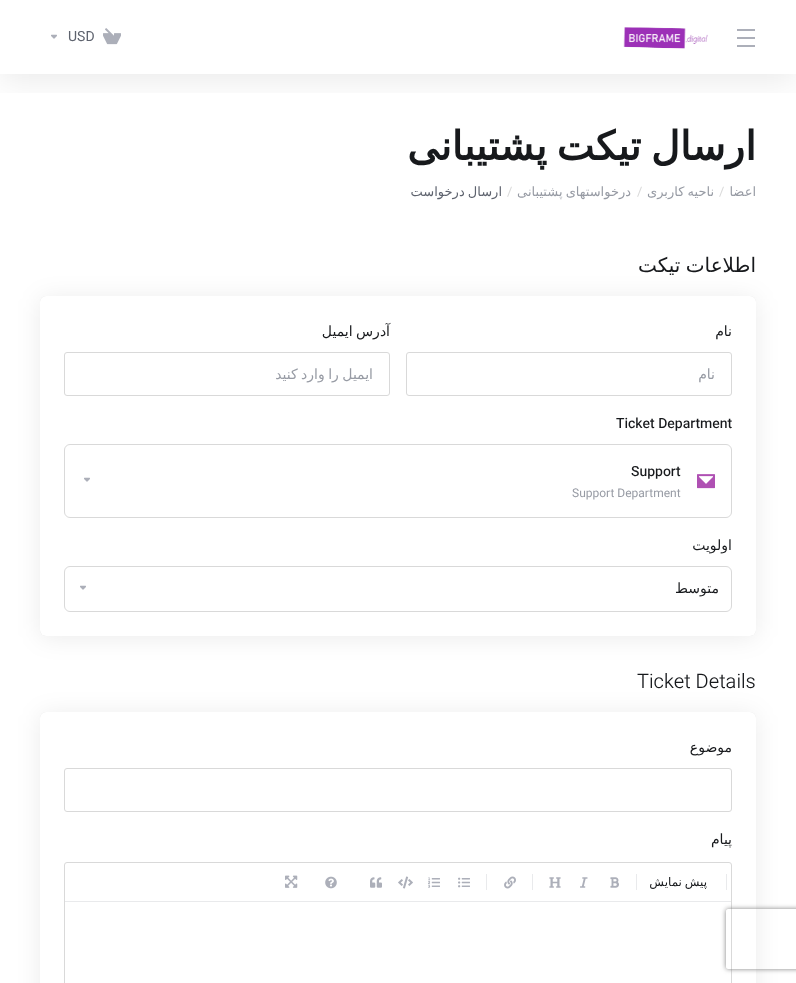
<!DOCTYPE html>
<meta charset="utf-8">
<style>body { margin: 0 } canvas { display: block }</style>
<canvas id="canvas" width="796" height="983"></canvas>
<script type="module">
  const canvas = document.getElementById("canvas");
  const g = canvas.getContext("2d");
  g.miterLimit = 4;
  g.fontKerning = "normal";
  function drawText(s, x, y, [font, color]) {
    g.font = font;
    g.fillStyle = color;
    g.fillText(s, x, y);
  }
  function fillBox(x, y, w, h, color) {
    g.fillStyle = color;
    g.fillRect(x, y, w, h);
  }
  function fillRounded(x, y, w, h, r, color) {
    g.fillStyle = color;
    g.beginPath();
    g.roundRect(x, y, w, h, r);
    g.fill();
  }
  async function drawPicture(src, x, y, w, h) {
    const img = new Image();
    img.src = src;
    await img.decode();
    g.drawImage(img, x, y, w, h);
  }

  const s1 = ["14px Heebo", "#5E636E"];
  const s2 = ["bold 40px DejaVu Sans", "#17191C"];
  const s3 = ["13px DejaVu Sans", "#979BA4"];
  const s4 = ["13px Heebo", "#D9D9D9"];
  const s5 = ["13px DejaVu Sans", "#5E636E"];
  const s6 = ["20px DejaVu Sans", "#17191C"];
  const s7 = ["14px DejaVu Sans", "#17191C"];
  const s8 = ["14px DejaVu Sans", "#979BA4"];
  const s9 = ["500 14px Heebo", "#17191C"];
  const s10 = ["12px Heebo", "#979BA4"];
  const s11 = ["300 20px Heebo", "#17191C"];
  const s12 = ["12px DejaVu Sans", "#17191C"];

  fillBox(0, 0, 796, 983, "#FFFFFF");
  g.save();
  g.beginPath();
  g.rect(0, 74, 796, 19);
  g.clip();
  g.fillStyle = "rgba(0, 0, 0, 0.08)";
  g.filter = "blur(16px)";
  g.beginPath();
  g.rect(0, 8, 796, 74);
  g.fill();
  g.filter = "none";
  g.restore();
  fillBox(737, 29, 18, 2, "#ACAFB9");
  fillBox(737, 37, 18, 2, "#ACAFB9");
  fillBox(737, 45, 18, 2, "#ACAFB9");
  await drawPicture("pic1.png", 623, 27, 85, 22);
  await drawPicture("pic2.png", 103, 28, 18, 17);
  drawText("USD", 68, 41, s1);
  await drawPicture("pic3.png", 51, 34, 6, 5);
  g.wordSpacing = "-3px";
  g.direction = "rtl";
  drawText("ارسال تیکت پشتیبانی", 756, 160, s2);
  g.wordSpacing = "0px";
  drawText("اعضا", 756, 196, s3);
  g.direction = "ltr";
  drawText("/", 719, 196, s4);
  g.wordSpacing = "-1px";
  g.direction = "rtl";
  drawText("ناحیه کاربری", 714, 196, s3);
  g.wordSpacing = "0px";
  g.direction = "ltr";
  drawText("/", 637, 196, s4);
  g.wordSpacing = "-1px";
  g.direction = "rtl";
  drawText("درخواستهای پشتیبانی", 631, 196, s3);
  g.wordSpacing = "0px";
  g.direction = "ltr";
  drawText("/", 507, 196, s4);
  g.wordSpacing = "-1px";
  g.direction = "rtl";
  drawText("ارسال درخواست", 502, 196, s5);
  drawText("اطلاعات تیکت", 756, 272, s6);
  g.fillStyle = "rgba(0, 0, 0, 0.08)";
  g.filter = "blur(12px)";
  g.beginPath();
  g.roundRect(40, 298, 716, 340, 6);
  g.fill();
  g.filter = "none";
  g.fillStyle = "rgba(0, 0, 0, 0.1)";
  g.filter = "blur(0.5px)";
  g.beginPath();
  g.roundRect(40, 296, 716, 340, 6);
  g.fill();
  g.filter = "none";
  fillRounded(40, 296, 716, 340, 6, "#FFFFFF");
  g.wordSpacing = "0px";
  drawText("نام", 732, 336, s7);
  g.beginPath();
  g.roundRect(406.5, 352.5, 325, 43, 2.5);
  g.strokeStyle = "#D9D9D9";
  g.stroke();
  drawText("نام", 715, 379, s8);
  g.wordSpacing = "-1px";
  drawText("آدرس ایمیل", 390, 336, s7);
  g.beginPath();
  g.roundRect(64.5, 352.5, 325, 43, 2.5);
  g.stroke();
  g.save();
  g.beginPath();
  g.rect(81, 364, 292, 21);
  g.clip();
  drawText("ایمیل را وارد کنید", 373, 379, s8);
  g.restore();
  g.wordSpacing = "0px";
  g.direction = "ltr";
  drawText("Ticket Department", 616, 428, s9);
  g.beginPath();
  g.roundRect(64.5, 444.5, 667, 73, 5.5);
  g.stroke();
  await drawPicture("pic4.png", 697, 474, 18, 15);
  drawText("Support", 631, 476, s9);
  drawText("Support Department", 572, 497, s10);
  await drawPicture("pic3.png", 84, 477, 6, 5);
  g.direction = "rtl";
  drawText("اولویت", 732, 550, s7);
  g.beginPath();
  g.roundRect(64.5, 566.5, 667, 45, 5.5);
  g.stroke();
  drawText("متوسط", 719, 593, s7);
  await drawPicture("pic3.png", 80, 585, 6, 5);
  g.direction = "ltr";
  drawText("Ticket Details", 637, 688, s11);
  g.fillStyle = "rgba(0, 0, 0, 0.08)";
  g.filter = "blur(12px)";
  g.beginPath();
  g.roundRect(40, 714, 716, 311, 6);
  g.fill();
  g.filter = "none";
  g.fillStyle = "rgba(0, 0, 0, 0.1)";
  g.filter = "blur(0.5px)";
  g.beginPath();
  g.roundRect(40, 712, 716, 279, 6);
  g.fill();
  g.filter = "none";
  fillRounded(40, 712, 716, 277, 6, "#FFFFFF");
  g.direction = "rtl";
  drawText("موضوع", 732, 752, s7);
  g.beginPath();
  g.roundRect(64.5, 768.5, 667, 43, 2.5);
  g.stroke();
  drawText("پیام", 732, 844, s7);
  g.beginPath();
  g.roundRect(64.5, 862.5, 667, 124, 2.5);
  g.stroke();
  fillBox(726, 874, 1, 16, "#E9EAEC");
  g.wordSpacing = "-1px";
  drawText("پیش نمایش", 707, 886, s12);
  fillBox(636, 874, 1, 16, "#E9EAEC");
  await drawPicture("pic5.png", 610, 877, 9, 11);
  await drawPicture("pic6.png", 580, 877, 8, 11);
  await drawPicture("pic7.png", 549, 877, 12, 11);
  fillBox(532, 874, 1, 16, "#E9EAEC");
  await drawPicture("pic8.png", 504, 876, 12, 13);
  fillBox(486, 874, 1, 16, "#E9EAEC");
  await drawPicture("pic9.png", 458, 877, 12, 11);
  await drawPicture("pic10.png", 428, 877, 12, 11);
  await drawPicture("pic11.png", 398, 876, 15, 13);
  await drawPicture("pic12.png", 370, 877, 12, 11);
  await drawPicture("pic13.png", 325, 876, 12, 13);
  await drawPicture("pic14.png", 285, 875, 13, 13);
  fillBox(65, 901, 666, 1, "#E9EAEC");
  g.save();
  g.beginPath();
  g.moveTo(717, 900);
  g.lineTo(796, 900);
  g.lineTo(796, 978);
  g.lineTo(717, 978);
  g.closePath();
  g.moveTo(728, 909);
  g.lineTo(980, 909);
  g.bezierCurveTo(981, 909, 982, 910, 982, 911);
  g.lineTo(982, 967);
  g.bezierCurveTo(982, 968, 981, 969, 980, 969);
  g.lineTo(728, 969);
  g.bezierCurveTo(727, 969, 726, 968, 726, 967);
  g.lineTo(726, 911);
  g.bezierCurveTo(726, 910, 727, 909, 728, 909);
  g.closePath();
  g.clip("evenodd");
  g.fillStyle = "#808080";
  g.filter = "blur(2.5px)";
  g.beginPath();
  g.roundRect(726, 909, 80, 60, 2);
  g.fill();
  g.filter = "none";
  g.restore();
</script>
